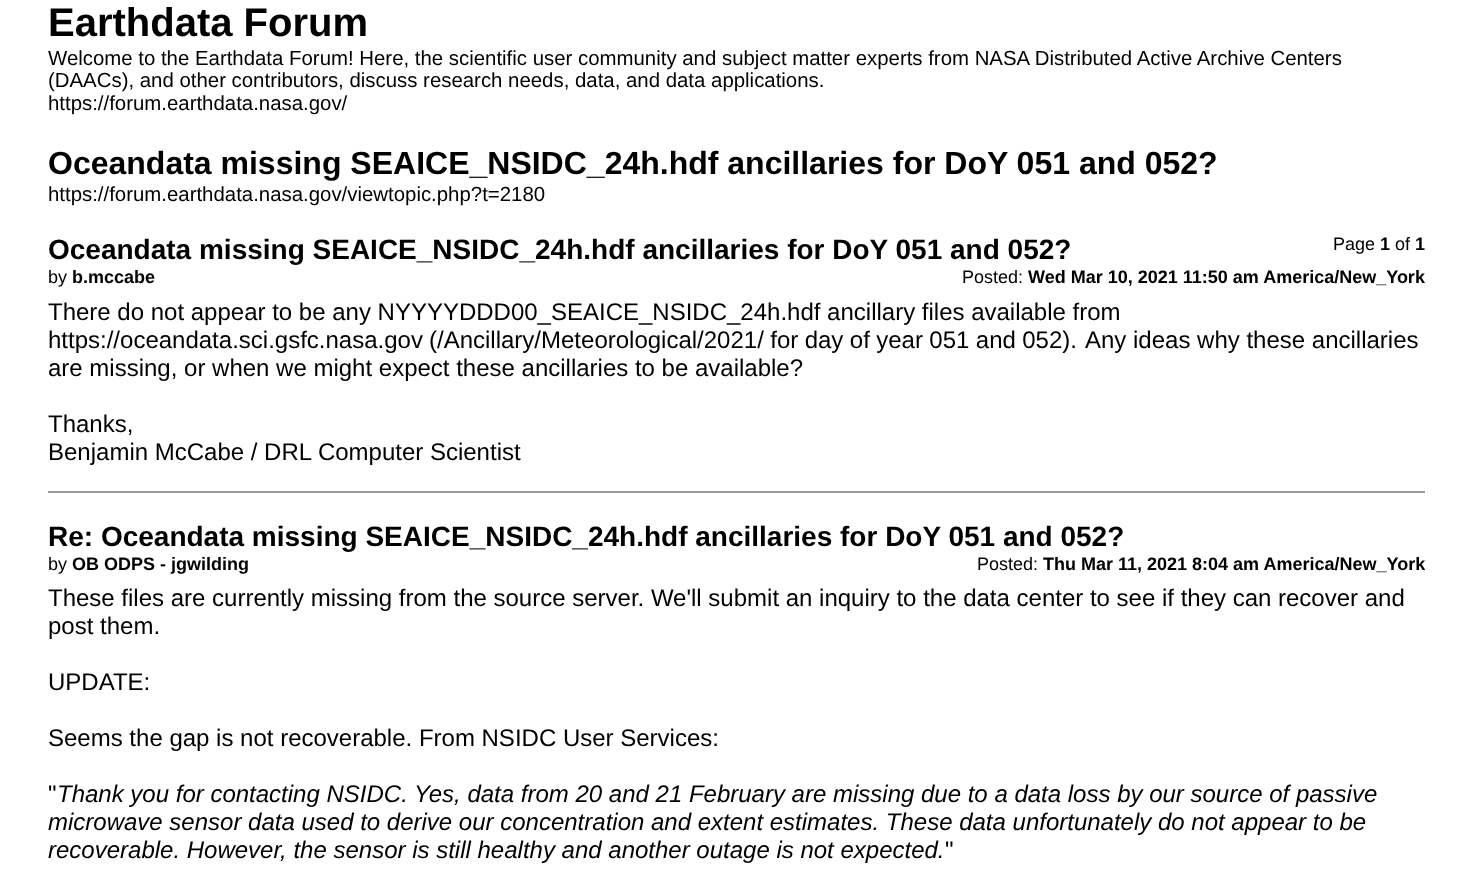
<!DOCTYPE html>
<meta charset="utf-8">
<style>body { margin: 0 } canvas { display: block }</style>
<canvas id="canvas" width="1473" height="888"></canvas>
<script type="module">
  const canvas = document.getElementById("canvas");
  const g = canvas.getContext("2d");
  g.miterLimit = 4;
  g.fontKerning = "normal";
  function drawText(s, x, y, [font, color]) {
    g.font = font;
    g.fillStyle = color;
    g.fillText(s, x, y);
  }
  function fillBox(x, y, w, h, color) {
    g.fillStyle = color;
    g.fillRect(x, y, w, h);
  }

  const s1 = ["bold 40px Liberation Sans", "#000000"];
  const s2 = ["20.4px Liberation Sans", "#000000"];
  const s3 = ["bold 32px Liberation Sans", "#000000"];
  const s4 = ["18px Liberation Sans", "#000000"];
  const s5 = ["bold 18px Liberation Sans", "#000000"];
  const s6 = ["bold 28px Liberation Sans", "#000000"];
  const s7 = ["24px Liberation Sans", "#000000"];
  const s8 = ["italic 24px Liberation Sans", "#000000"];

  fillBox(0, 0, 1473, 888, "#FFFFFF");
  drawText("Earthdata Forum", 48, 36, s1);
  drawText("Welcome to the Earthdata Forum! Here, the scientific user community and subject matter experts from NASA Distributed Active Archive Centers", 48, 65, s2);
  drawText("(DAACs), and other contributors, discuss research needs, data, and data applications.", 48, 87, s2);
  drawText("https://forum.earthdata.nasa.gov/", 48, 110, s2);
  drawText("Oceandata missing SEAICE_NSIDC_24h.hdf ancillaries for DoY 051 and 052?", 48, 174, s3);
  drawText("https://forum.earthdata.nasa.gov/viewtopic.php?t=2180", 48, 201, s2);
  drawText("Page", 1333, 250, s4);
  drawText("1", 1380, 250, s5);
  drawText("of", 1395, 250, s4);
  drawText("1", 1415, 250, s5);
  drawText("Oceandata missing SEAICE_NSIDC_24h.hdf ancillaries for DoY 051 and 052?", 48, 259, s6);
  drawText("by", 48, 283, s4);
  drawText("b.mccabe", 72, 283, s5);
  drawText("Posted:", 962, 283, s4);
  drawText("Wed Mar 10, 2021 11:50 am America/New_York", 1028, 283, s5);
  drawText("There do not appear to be any NYYYYDDD00_SEAICE_NSIDC_24h.hdf ancillary files available from", 48, 320, s7);
  drawText("https://oceandata.sci.gsfc.nasa.gov", 48, 348, s7);
  g.wordSpacing = "-0.25px";
  drawText("(/Ancillary/Meteorological/2021/ for day of year 051 and 052).", 429, 348, s7);
  g.wordSpacing = "0px";
  drawText("Any ideas why these ancillaries", 1085, 348, s7);
  drawText("are missing, or when we might expect these ancillaries to be available?", 48, 376, s7);
  drawText("Thanks,", 48, 432, s7);
  drawText("Benjamin McCabe / DRL Computer Scientist", 48, 460, s7);
  fillBox(48, 491, 1377, 2, "#999999");
  drawText("Re: Oceandata missing SEAICE_NSIDC_24h.hdf ancillaries for DoY 051 and 052?", 48, 546, s6);
  drawText("by", 48, 570, s4);
  drawText("OB ODPS - jgwilding", 72, 570, s5);
  drawText("Posted:", 977, 570, s4);
  drawText("Thu Mar 11, 2021 8:04 am America/New_York", 1043, 570, s5);
  drawText("These files are currently missing from the source server. We'll submit an inquiry to the data center to see if they can recover and", 48, 606, s7);
  drawText("post them.", 48, 634, s7);
  drawText("UPDATE:", 48, 690, s7);
  drawText("Seems the gap is not recoverable. From NSIDC User Services:", 48, 746, s7);
  drawText("\"", 48, 802, s7);
  drawText("Thank you for contacting NSIDC. Yes, data from 20 and 21 February are missing due to a data loss by our source of passive", 57, 802, s8);
  drawText("microwave sensor data used to derive our concentration and extent estimates. These data unfortunately do not appear to be", 48, 830, s8);
  drawText("recoverable. However, the sensor is still healthy and another outage is not expected.", 48, 858, s8);
  drawText("\"", 945, 858, s7);
</script>
